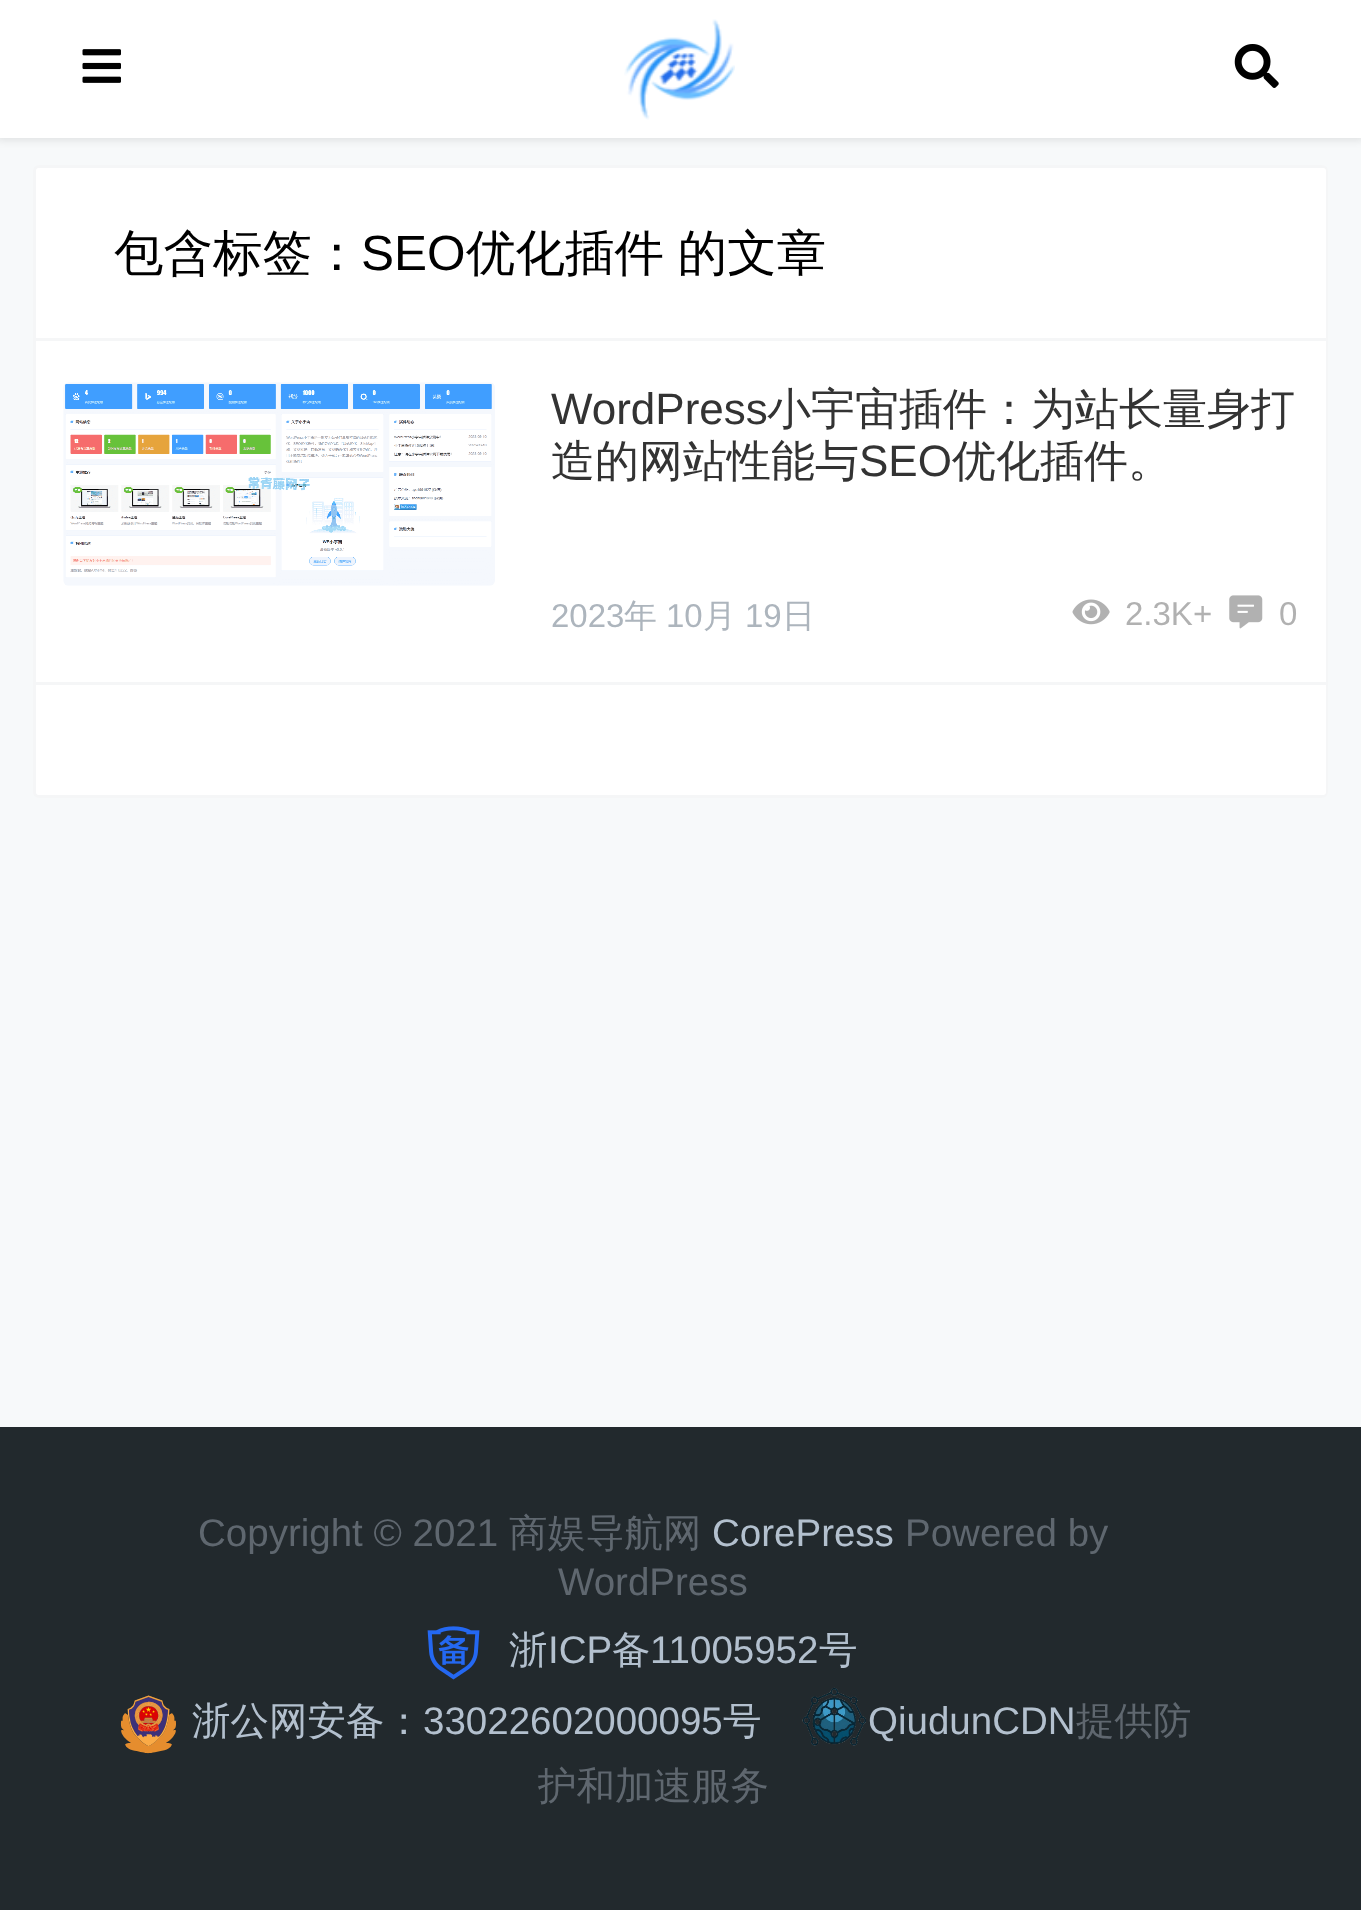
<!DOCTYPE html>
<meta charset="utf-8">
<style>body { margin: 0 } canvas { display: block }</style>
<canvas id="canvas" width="1361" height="1910"></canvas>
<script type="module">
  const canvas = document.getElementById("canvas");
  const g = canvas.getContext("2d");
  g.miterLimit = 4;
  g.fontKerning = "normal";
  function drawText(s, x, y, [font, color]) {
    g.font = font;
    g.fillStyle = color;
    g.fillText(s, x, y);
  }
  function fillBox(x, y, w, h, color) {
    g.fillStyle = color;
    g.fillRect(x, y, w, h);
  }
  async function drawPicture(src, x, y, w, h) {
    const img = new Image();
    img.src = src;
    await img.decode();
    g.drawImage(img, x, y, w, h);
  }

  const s1 = ["500 49.5px WenQuanYi Zen Hei", "#000000"];
  const s2 = ["49.5px Liberation Sans", "#000000"];
  const s3 = ["44px Liberation Sans", "#333333"];
  const s4 = ["500 44px WenQuanYi Zen Hei", "#333333"];
  const s5 = ["33px Liberation Sans", "#ADB5BD"];
  const s6 = ["500 33px WenQuanYi Zen Hei", "#ADB5BD"];
  const s7 = ["33px Liberation Sans", "#B1B1B1"];
  const s8 = ["38.5px Liberation Sans", "#5F676F"];
  const s9 = ["500 38.5px WenQuanYi Zen Hei", "#5F676F"];
  const s10 = ["38.5px Liberation Sans", "#B3C0CE"];
  const s11 = ["500 38.5px WenQuanYi Zen Hei", "#B3C0CE"];

  fillBox(0, 0, 1361, 1910, "#F7F9FA");
  g.fillStyle = "rgba(0, 0, 0, 0.1)";
  g.filter = "blur(4px)";
  g.beginPath();
  g.rect(-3, -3, 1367, 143);
  g.fill();
  g.filter = "none";
  fillBox(0, 0, 1361, 138, "#FFFFFF");
  await drawPicture("pic1.png", 82, 49, 39, 34);
  await drawPicture("pic2.png", 624, 19, 111, 101);
  await drawPicture("pic3.png", 1234, 44, 45, 44);
  g.beginPath();
  g.roundRect(34.5, 166.5, 1292, 630, 4.5);
  g.strokeStyle = "#F5F6F7";
  g.lineWidth = 3;
  g.stroke();
  g.beginPath();
  g.roundRect(36, 168, 1290, 173, [3, 3, 0, 0]);
  g.fill();
  fillBox(36, 338, 1290, 3, "#F5F6F7");
  drawText("包含标签：", 114, 270, s1);
  drawText("SEO", 361, 270, s2);
  g.wordSpacing = "-1px";
  drawText("优化插件 的文章", 466, 270, s1);
  fillBox(36, 341, 1290, 341, "#FFFFFF");
  fillBox(36, 682, 1290, 3, "#F5F6F7");
  await drawPicture("pic4.png", 63, 382, 432, 204);
  g.wordSpacing = "0px";
  drawText("WordPress", 551, 424, s3);
  drawText("小宇宙插件：为站长量身打", 767, 424, s4);
  drawText("造的网站性能与", 551, 476, s4);
  drawText("SEO", 859, 476, s3);
  drawText("优化插件。", 952, 476, s4);
  drawText("2023", 551, 627, s5);
  drawText("年", 624, 627, s6);
  drawText("10", 666, 627, s5);
  drawText("月", 703, 627, s6);
  drawText("19", 745, 627, s5);
  drawText("日", 782, 627, s6);
  await drawPicture("pic5.png", 1072, 599, 38, 26);
  drawText("2.3K+", 1125, 625, s7);
  await drawPicture("pic6.png", 1229, 595, 34, 34);
  drawText("0", 1279, 625, s7);
  g.fillStyle = "#FFFFFF";
  g.beginPath();
  g.roundRect(36, 685, 1290, 110, [0, 0, 3, 3]);
  g.fill();
  fillBox(0, 1427, 1361, 483, "#22292D");
  drawText("Copyright © 2021", 198, 1546, s8);
  drawText("商娱导航网", 509, 1546, s9);
  drawText("CorePress", 712, 1546, s10);
  drawText("Powered by", 905, 1546, s8);
  drawText("WordPress", 558, 1595, s8);
  await drawPicture("pic7.png", 427, 1626, 53, 54);
  drawText("浙", 509, 1663, s11);
  drawText("ICP", 548, 1663, s10);
  drawText("备", 612, 1663, s11);
  drawText("11005952", 650, 1663, s10);
  drawText("号", 819, 1663, s11);
  await drawPicture("pic8.png", 120, 1695, 56, 59);
  drawText("浙公网安备：", 192, 1734, s11);
  drawText("33022602000095", 423, 1734, s10);
  drawText("号", 723, 1734, s11);
  await drawPicture("pic9.png", 802, 1687, 64, 59);
  drawText("QiudunCDN", 868, 1734, s10);
  drawText("提供防", 1076, 1734, s9);
  drawText("护和加速服务", 538, 1799, s9);
</script>
